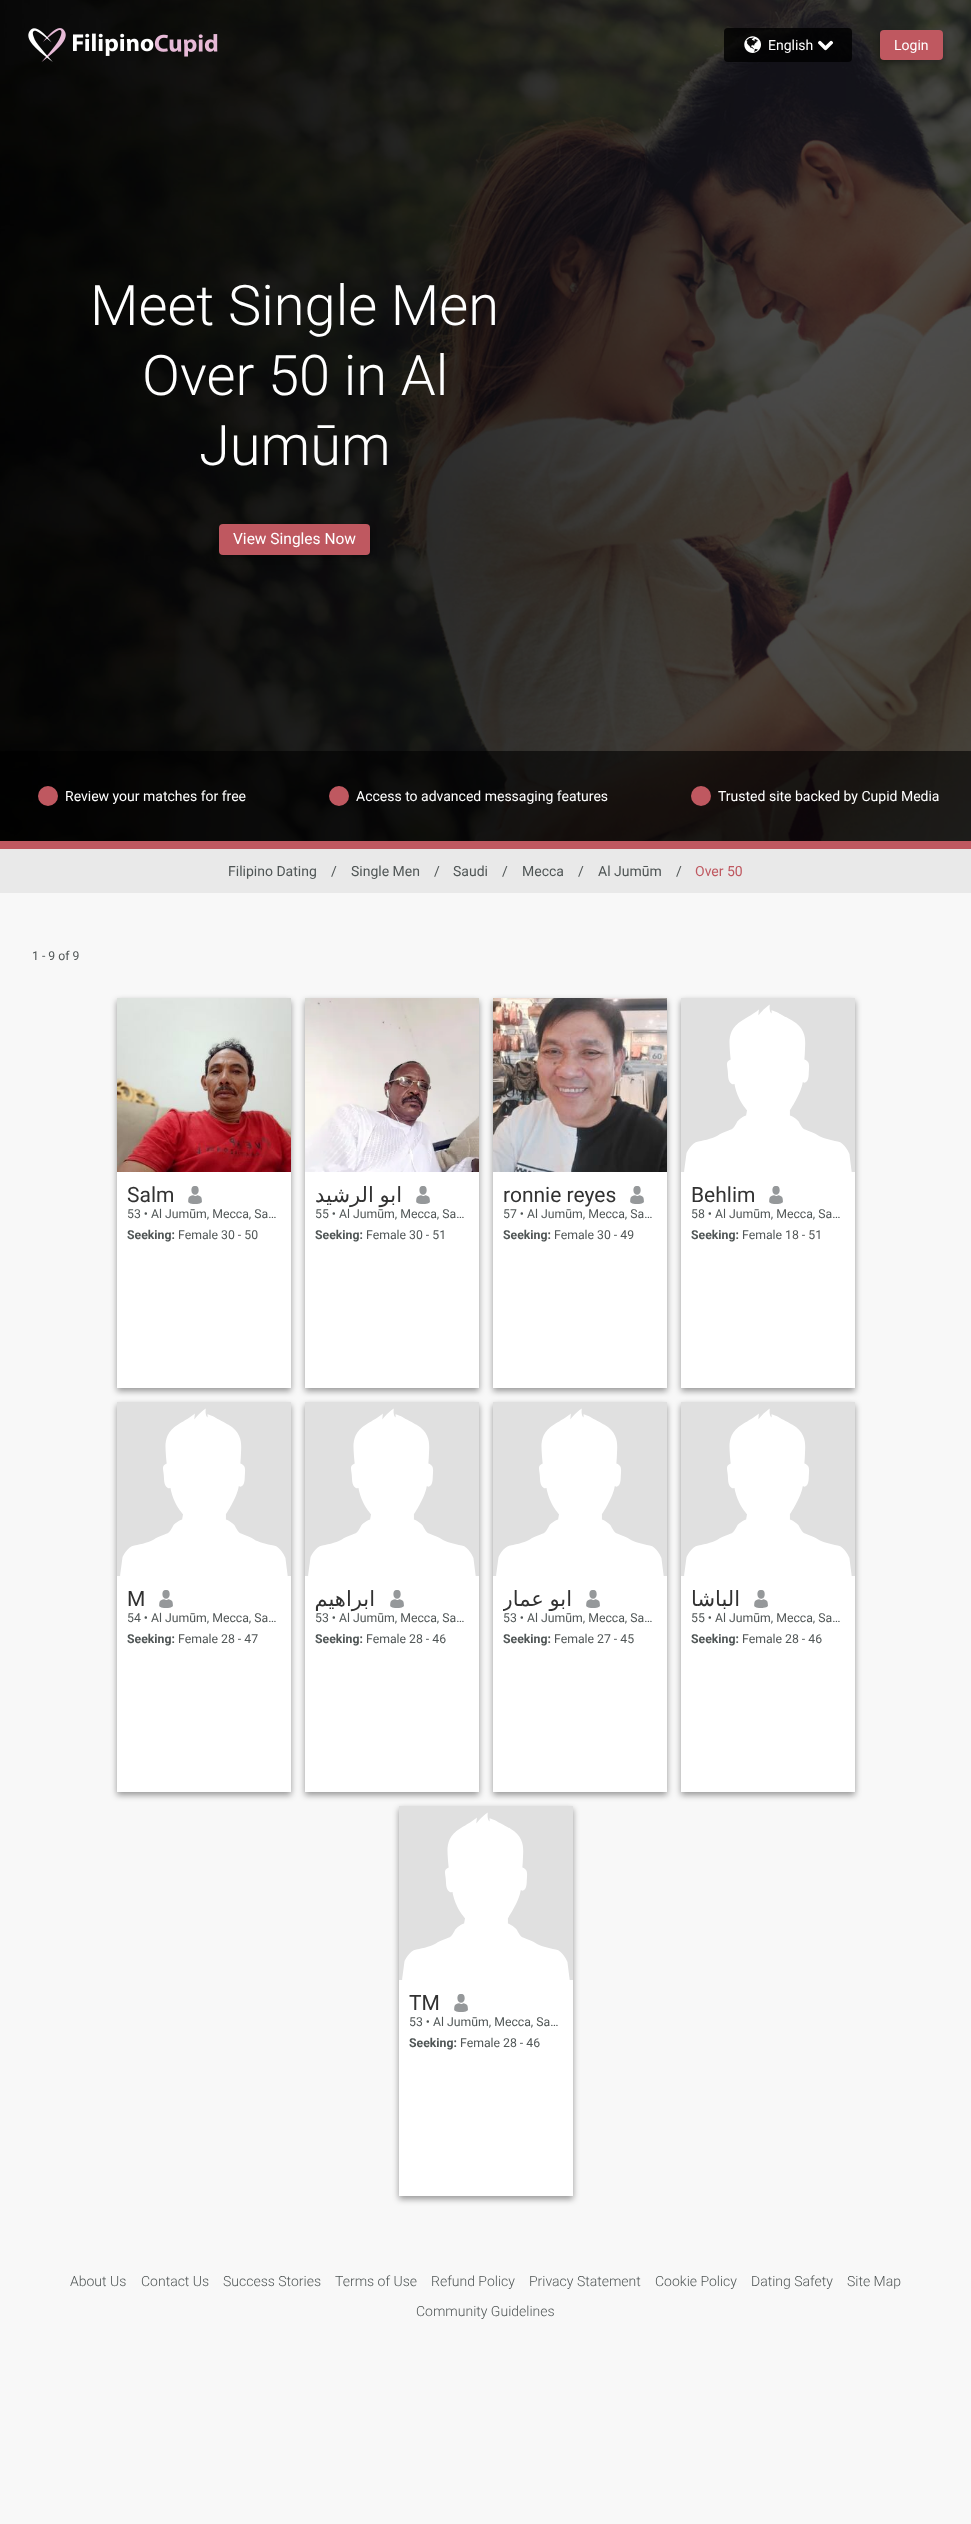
<!DOCTYPE html>
<meta charset="utf-8">
<style>body { margin: 0 } canvas { display: block }</style>
<canvas id="canvas" width="971" height="2524"></canvas>
<script type="module">
  const canvas = document.getElementById("canvas");
  const g = canvas.getContext("2d");
  g.miterLimit = 4;
  g.fontKerning = "normal";
  function drawText(s, x, y, [font, color]) {
    g.font = font;
    g.fillStyle = color;
    g.fillText(s, x, y);
  }
  function fillBox(x, y, w, h, color) {
    g.fillStyle = color;
    g.fillRect(x, y, w, h);
  }
  function fillRounded(x, y, w, h, r, color) {
    g.fillStyle = color;
    g.beginPath();
    g.roundRect(x, y, w, h, r);
    g.fill();
  }
  async function drawPicture(src, x, y, w, h) {
    const img = new Image();
    img.src = src;
    await img.decode();
    g.drawImage(img, x, y, w, h);
  }

  const s1 = ["14px Roboto", "#FFFFFF"];
  const s2 = ["300 56px Roboto", "#FFFFFF"];
  const s3 = ["15.5px Roboto", "#FFFFFF"];
  const s4 = ["14px Roboto", "#505656"];
  const s5 = ["14px Roboto", "#BF5860"];
  const s6 = ["12.25px Roboto", "#505656"];
  const s7 = ["21px Roboto", "#323232"];
  const s8 = ["bold 12.25px Roboto", "#505656"];
  const s9 = ["21px DejaVu Sans", "#323232"];
  const s10 = ["300 14px Roboto", "#505656"];

  fillBox(0, 0, 971, 2524, "#F8F8F8");
  await drawPicture("pic5.png", 0, 0, 971, 841);
  await drawPicture("pic1.png", 28, 28, 38, 34);
  await drawPicture("pic2.png", 73, 33, 145, 24);
  fillRounded(724, 28, 128, 34, 4, "rgba(0, 0, 0, 0.8)");
  await drawPicture("pic3.png", 744, 36, 17, 17);
  drawText("English", 768, 50, s1);
  await drawPicture("pic4.png", 818, 40, 15, 11);
  g.fillStyle = "rgba(0, 0, 0, 0.4)";
  g.filter = "blur(3px)";
  g.beginPath();
  g.roundRect(880, 33, 63, 30, 4);
  g.fill();
  g.filter = "none";
  fillRounded(880, 30, 63, 30, 4, "#BF5860");
  drawText("Login", 894, 50, s1);
  drawText("Meet Single Men", 90, 325, s2);
  drawText("Over 50 in Al", 142, 395, s2);
  drawText("Jumūm", 199, 465, s2);
  g.fillStyle = "rgba(0, 0, 0, 0.4)";
  g.filter = "blur(3px)";
  g.beginPath();
  g.roundRect(219, 527, 151, 31, 4);
  g.fill();
  g.filter = "none";
  fillRounded(219, 524, 151, 31, 4, "#BF5860");
  drawText("View Singles Now", 233, 544, s3);
  fillBox(0, 751, 971, 90, "rgba(0, 0, 0, 0.6)");
  g.fillStyle = "#BF5860";
  g.beginPath();
  g.arc(48, 796, 10, 0, Math.PI * 2);
  g.fill();
  drawText("Review your matches for free", 65, 801, s1);
  g.fillStyle = "#BF5860";
  g.beginPath();
  g.arc(339, 796, 10, 0, Math.PI * 2);
  g.fill();
  drawText("Access to advanced messaging features", 356, 801, s1);
  g.fillStyle = "#BF5860";
  g.beginPath();
  g.arc(701, 796, 10, 0, Math.PI * 2);
  g.fill();
  drawText("Trusted site backed by Cupid Media", 718, 801, s1);
  fillBox(0, 841, 971, 8, "#BF5860");
  fillBox(0, 849, 971, 44, "#E9E9E9");
  drawText("Filipino Dating", 228, 876, s4);
  drawText("/", 331, 876, s4);
  drawText("Single Men", 351, 876, s4);
  drawText("/", 434, 876, s4);
  drawText("Saudi", 453, 876, s4);
  drawText("/", 502, 876, s4);
  drawText("Mecca", 522, 876, s4);
  drawText("/", 578, 876, s4);
  drawText("Al Jumūm", 598, 876, s4);
  drawText("/", 676, 876, s4);
  drawText("Over 50", 695, 876, s5);
  drawText("1 - 9 of 9", 32, 960, s6);
  g.fillStyle = "rgba(0, 0, 0, 0.4)";
  g.filter = "blur(3px)";
  g.beginPath();
  g.rect(117, 1001, 174, 390);
  g.fill();
  g.filter = "none";
  fillBox(117, 1172, 174, 216, "#FFFFFF");
  await drawPicture("pic6.png", 117, 998, 174, 174);
  drawText("Salm", 127, 1202, s7);
  await drawPicture("pic7.png", 188, 1186, 14, 18);
  drawText("53 • Al Jumūm, Mecca, Sa…", 127, 1218, s6);
  drawText("Seeking:", 127, 1239, s8);
  drawText("Female 30 - 50", 178, 1239, s6);
  g.fillStyle = "rgba(0, 0, 0, 0.4)";
  g.filter = "blur(3px)";
  g.beginPath();
  g.rect(305, 1001, 174, 390);
  g.fill();
  g.filter = "none";
  fillBox(305, 1172, 174, 216, "#FFFFFF");
  await drawPicture("pic8.png", 305, 998, 174, 174);
  g.wordSpacing = "-1px";
  g.direction = "rtl";
  drawText("ابو الرشيد", 402, 1202, s9);
  await drawPicture("pic7.png", 416, 1186, 14, 18);
  g.wordSpacing = "0px";
  g.direction = "ltr";
  drawText("55 • Al Jumūm, Mecca, Sa…", 315, 1218, s6);
  drawText("Seeking:", 315, 1239, s8);
  drawText("Female 30 - 51", 366, 1239, s6);
  g.fillStyle = "rgba(0, 0, 0, 0.4)";
  g.filter = "blur(3px)";
  g.beginPath();
  g.rect(493, 1001, 174, 390);
  g.fill();
  g.filter = "none";
  fillBox(493, 1172, 174, 216, "#FFFFFF");
  await drawPicture("pic9.png", 493, 998, 174, 174);
  drawText("ronnie reyes", 503, 1202, s7);
  await drawPicture("pic7.png", 630, 1186, 14, 18);
  drawText("57 • Al Jumūm, Mecca, Sa…", 503, 1218, s6);
  drawText("Seeking:", 503, 1239, s8);
  drawText("Female 30 - 49", 554, 1239, s6);
  g.fillStyle = "rgba(0, 0, 0, 0.4)";
  g.filter = "blur(3px)";
  g.beginPath();
  g.rect(681, 1001, 174, 390);
  g.fill();
  g.filter = "none";
  fillBox(681, 1172, 174, 216, "#FFFFFF");
  fillBox(681, 998, 174, 174, "#E0E0E0");
  await drawPicture("pic10.png", 684, 1004, 168, 168);
  drawText("Behlim", 691, 1202, s7);
  await drawPicture("pic7.png", 769, 1186, 14, 18);
  drawText("58 • Al Jumūm, Mecca, Sa…", 691, 1218, s6);
  drawText("Seeking:", 691, 1239, s8);
  drawText("Female 18 - 51", 742, 1239, s6);
  g.fillStyle = "rgba(0, 0, 0, 0.4)";
  g.filter = "blur(3px)";
  g.beginPath();
  g.rect(117, 1405, 174, 390);
  g.fill();
  g.filter = "none";
  fillBox(117, 1576, 174, 216, "#FFFFFF");
  fillBox(117, 1402, 174, 174, "#E0E0E0");
  await drawPicture("pic11.png", 120, 1408, 168, 168);
  drawText("M", 127, 1606, s7);
  await drawPicture("pic7.png", 159, 1590, 14, 18);
  drawText("54 • Al Jumūm, Mecca, Sa…", 127, 1622, s6);
  drawText("Seeking:", 127, 1643, s8);
  drawText("Female 28 - 47", 178, 1643, s6);
  g.fillStyle = "rgba(0, 0, 0, 0.4)";
  g.filter = "blur(3px)";
  g.beginPath();
  g.rect(305, 1405, 174, 390);
  g.fill();
  g.filter = "none";
  fillBox(305, 1576, 174, 216, "#FFFFFF");
  fillBox(305, 1402, 174, 174, "#E0E0E0");
  await drawPicture("pic12.png", 308, 1408, 168, 168);
  g.direction = "rtl";
  drawText("ابراهيم", 375, 1606, s9);
  await drawPicture("pic7.png", 390, 1590, 14, 18);
  g.direction = "ltr";
  drawText("53 • Al Jumūm, Mecca, Sa…", 315, 1622, s6);
  drawText("Seeking:", 315, 1643, s8);
  drawText("Female 28 - 46", 366, 1643, s6);
  g.fillStyle = "rgba(0, 0, 0, 0.4)";
  g.filter = "blur(3px)";
  g.beginPath();
  g.rect(493, 1405, 174, 390);
  g.fill();
  g.filter = "none";
  fillBox(493, 1576, 174, 216, "#FFFFFF");
  fillBox(493, 1402, 174, 174, "#E0E0E0");
  await drawPicture("pic13.png", 496, 1408, 168, 168);
  g.save();
  g.beginPath();
  g.rect(503, 1587, 69, 24);
  g.clip();
  g.wordSpacing = "-1px";
  g.direction = "rtl";
  drawText("ابو عمار", 572, 1606, s9);
  g.restore();
  await drawPicture("pic7.png", 586, 1590, 14, 18);
  drawText("53 • Al Jumūm, Mecca, Sa…", 503, 1622, s6);
  drawText("Seeking:", 503, 1643, s8);
  drawText("Female 27 - 45", 554, 1643, s6);
  g.fillStyle = "rgba(0, 0, 0, 0.4)";
  g.filter = "blur(3px)";
  g.beginPath();
  g.rect(681, 1405, 174, 390);
  g.fill();
  g.filter = "none";
  fillBox(681, 1576, 174, 216, "#FFFFFF");
  fillBox(681, 1402, 174, 174, "#E0E0E0");
  await drawPicture("pic14.png", 684, 1408, 168, 168);
  g.direction = "rtl";
  drawText("الباشا", 740, 1606, s9);
  await drawPicture("pic15.png", 754, 1590, 14, 18);
  g.direction = "ltr";
  drawText("55 • Al Jumūm, Mecca, Sa…", 691, 1622, s6);
  drawText("Seeking:", 691, 1643, s8);
  drawText("Female 28 - 46", 742, 1643, s6);
  g.fillStyle = "rgba(0, 0, 0, 0.4)";
  g.filter = "blur(3px)";
  g.beginPath();
  g.rect(399, 1809, 174, 390);
  g.fill();
  g.filter = "none";
  fillBox(399, 1980, 174, 216, "#FFFFFF");
  fillBox(399, 1806, 174, 174, "#E0E0E0");
  await drawPicture("pic16.png", 402, 1812, 168, 168);
  drawText("TM", 409, 2010, s7);
  await drawPicture("pic7.png", 454, 1994, 14, 18);
  drawText("53 • Al Jumūm, Mecca, Sa…", 409, 2026, s6);
  drawText("Seeking:", 409, 2047, s8);
  drawText("Female 28 - 46", 460, 2047, s6);
  drawText("About Us", 70, 2286, s10);
  drawText("Contact Us", 141, 2286, s10);
  drawText("Success Stories", 223, 2286, s10);
  drawText("Terms of Use", 335, 2286, s10);
  drawText("Refund Policy", 431, 2286, s10);
  drawText("Privacy Statement", 529, 2286, s10);
  drawText("Cookie Policy", 655, 2286, s10);
  drawText("Dating Safety", 751, 2286, s10);
  drawText("Site Map", 847, 2286, s10);
  drawText("Community Guidelines", 416, 2316, s10);
</script>
